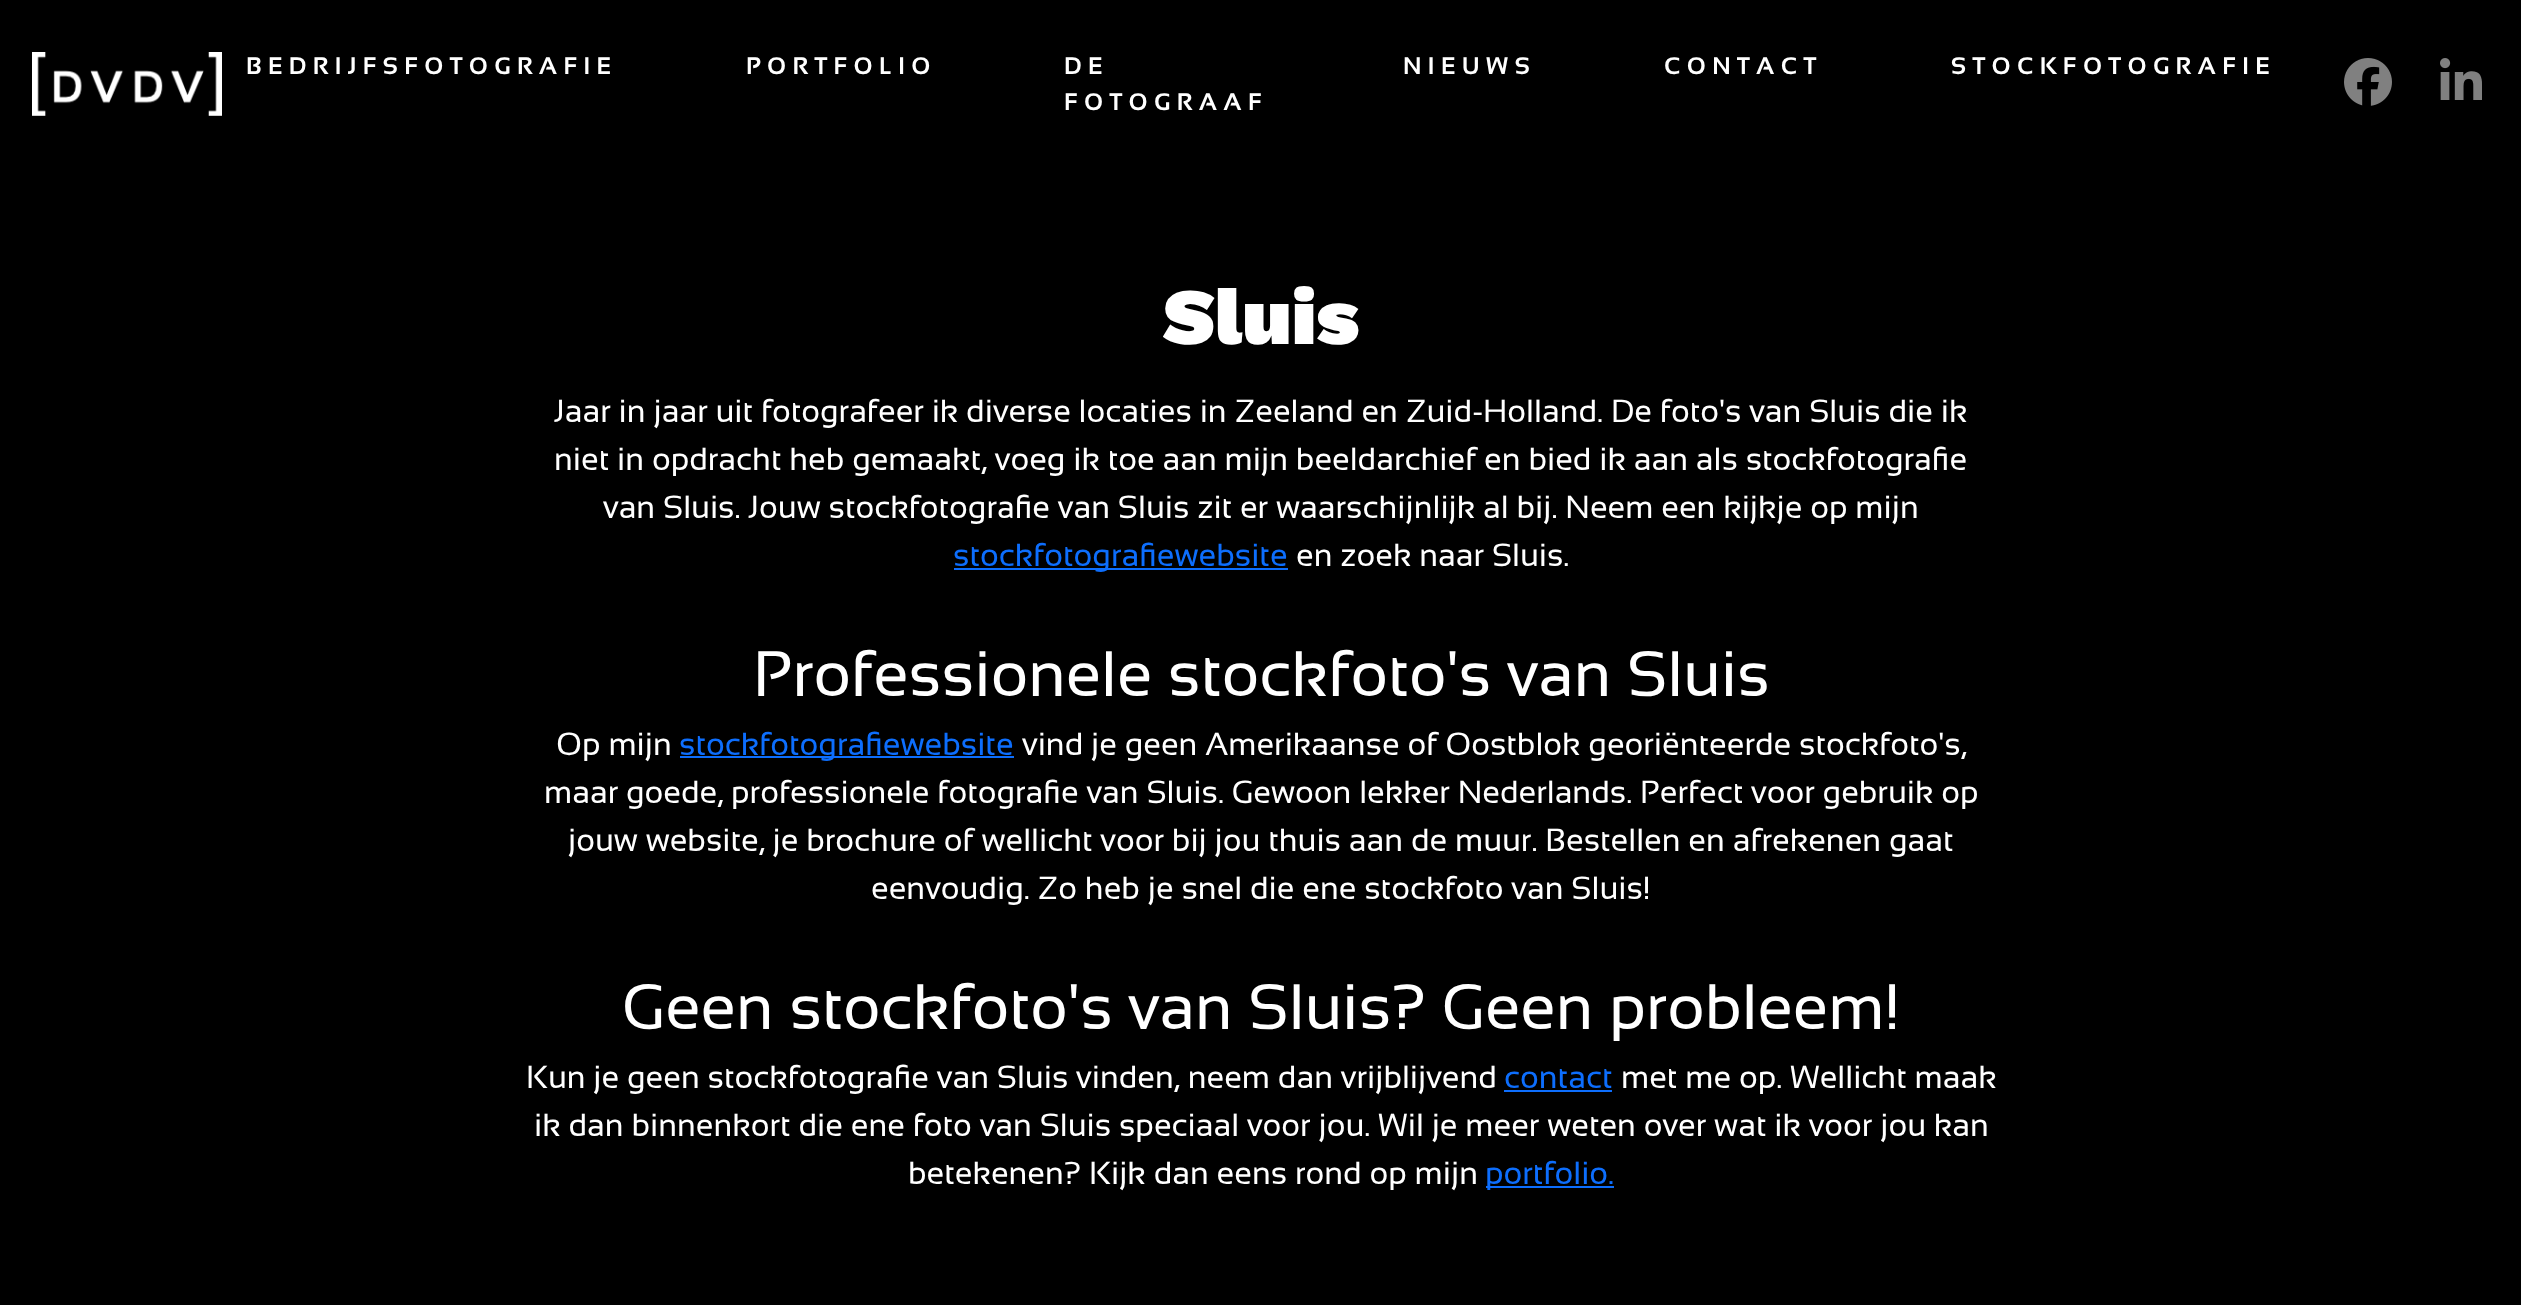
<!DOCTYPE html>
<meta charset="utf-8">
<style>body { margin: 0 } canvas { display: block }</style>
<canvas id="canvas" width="2521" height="1305"></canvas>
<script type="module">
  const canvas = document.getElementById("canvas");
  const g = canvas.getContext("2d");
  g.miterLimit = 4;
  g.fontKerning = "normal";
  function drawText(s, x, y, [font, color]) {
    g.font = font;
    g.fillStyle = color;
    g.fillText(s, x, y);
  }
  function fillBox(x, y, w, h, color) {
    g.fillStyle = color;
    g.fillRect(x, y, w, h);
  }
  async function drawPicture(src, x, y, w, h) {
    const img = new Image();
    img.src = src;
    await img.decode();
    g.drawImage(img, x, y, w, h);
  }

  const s1 = ["bold 24px Sansation", "#FFFFFF"];
  const s2 = ["900 80px Work Sans", "#FFFFFF"];
  const s3 = ["32px Sansation", "#FFFFFF"];
  const s4 = ["32px Sansation", "#0D6EFD"];
  const s5 = ["64px Sansation", "#FFFFFF"];

  fillBox(0, 0, 2521, 1305, "#000000");
  await drawPicture("pic1.png", 32, 52, 190, 64);
  g.letterSpacing = "6.4px";
  drawText("BEDRIJFSFOTOGRAFIE", 246, 74, s1);
  drawText("PORTFOLIO", 746, 74, s1);
  drawText("DE", 1064, 74, s1);
  drawText("FOTOGRAAF", 1064, 110, s1);
  drawText("NIEUWS", 1403, 74, s1);
  drawText("CONTACT", 1664, 74, s1);
  drawText("STOCKFOTOGRAFIE", 1951, 74, s1);
  await drawPicture("pic2.png", 2344, 58, 48, 48);
  await drawPicture("pic3.png", 2440, 58, 42, 42);
  g.letterSpacing = "0px";
  drawText("Sluis", 1163, 344, s2);
  drawText("Jaar in jaar uit fotografeer ik diverse locaties in Zeeland en Zuid-Holland. De foto's van Sluis die ik", 554, 422, s3);
  drawText("niet in opdracht heb gemaakt, voeg ik toe aan mijn beeldarchief en bied ik aan als stockfotografie", 554, 470, s3);
  drawText("van Sluis. Jouw stockfotografie van Sluis zit er waarschijnlijk al bij. Neem een kijkje op mijn", 603, 518, s3);
  fillBox(954, 568, 334, 2, "#0D6EFD");
  drawText("stockfotografiewebsite", 953, 566, s4);
  drawText("en zoek naar Sluis.", 1296, 566, s3);
  drawText("Professionele stockfoto's van Sluis", 753, 696, s5);
  drawText("Op mijn", 556, 755, s3);
  fillBox(680, 756, 334, 2, "#0D6EFD");
  drawText("stockfotografiewebsite", 679, 755, s4);
  drawText("vind je geen Amerikaanse of Oostblok georiënteerde stockfoto's,", 1022, 755, s3);
  drawText("maar goede, professionele fotografie van Sluis. Gewoon lekker Nederlands. Perfect voor gebruik op", 544, 803, s3);
  drawText("jouw website, je brochure of wellicht voor bij jou thuis aan de muur. Bestellen en afrekenen gaat", 568, 851, s3);
  drawText("eenvoudig. Zo heb je snel die ene stockfoto van Sluis!", 871, 899, s3);
  drawText("Geen stockfoto's van Sluis? Geen probleem!", 622, 1029, s5);
  drawText("Kun je geen stockfotografie van Sluis vinden, neem dan vrijblijvend", 526, 1088, s3);
  drawText("contact", 1504, 1088, s4);
  fillBox(1504, 1090, 108, 2, "#0D6EFD");
  drawText("met me op. Wellicht maak", 1621, 1088, s3);
  drawText("ik dan binnenkort die ene foto van Sluis speciaal voor jou. Wil je meer weten over wat ik voor jou kan", 534, 1136, s3);
  drawText("betekenen? Kijk dan eens rond op mijn", 908, 1184, s3);
  fillBox(1486, 1186, 128, 2, "#0D6EFD");
  drawText("portfolio.", 1485, 1184, s4);
</script>
